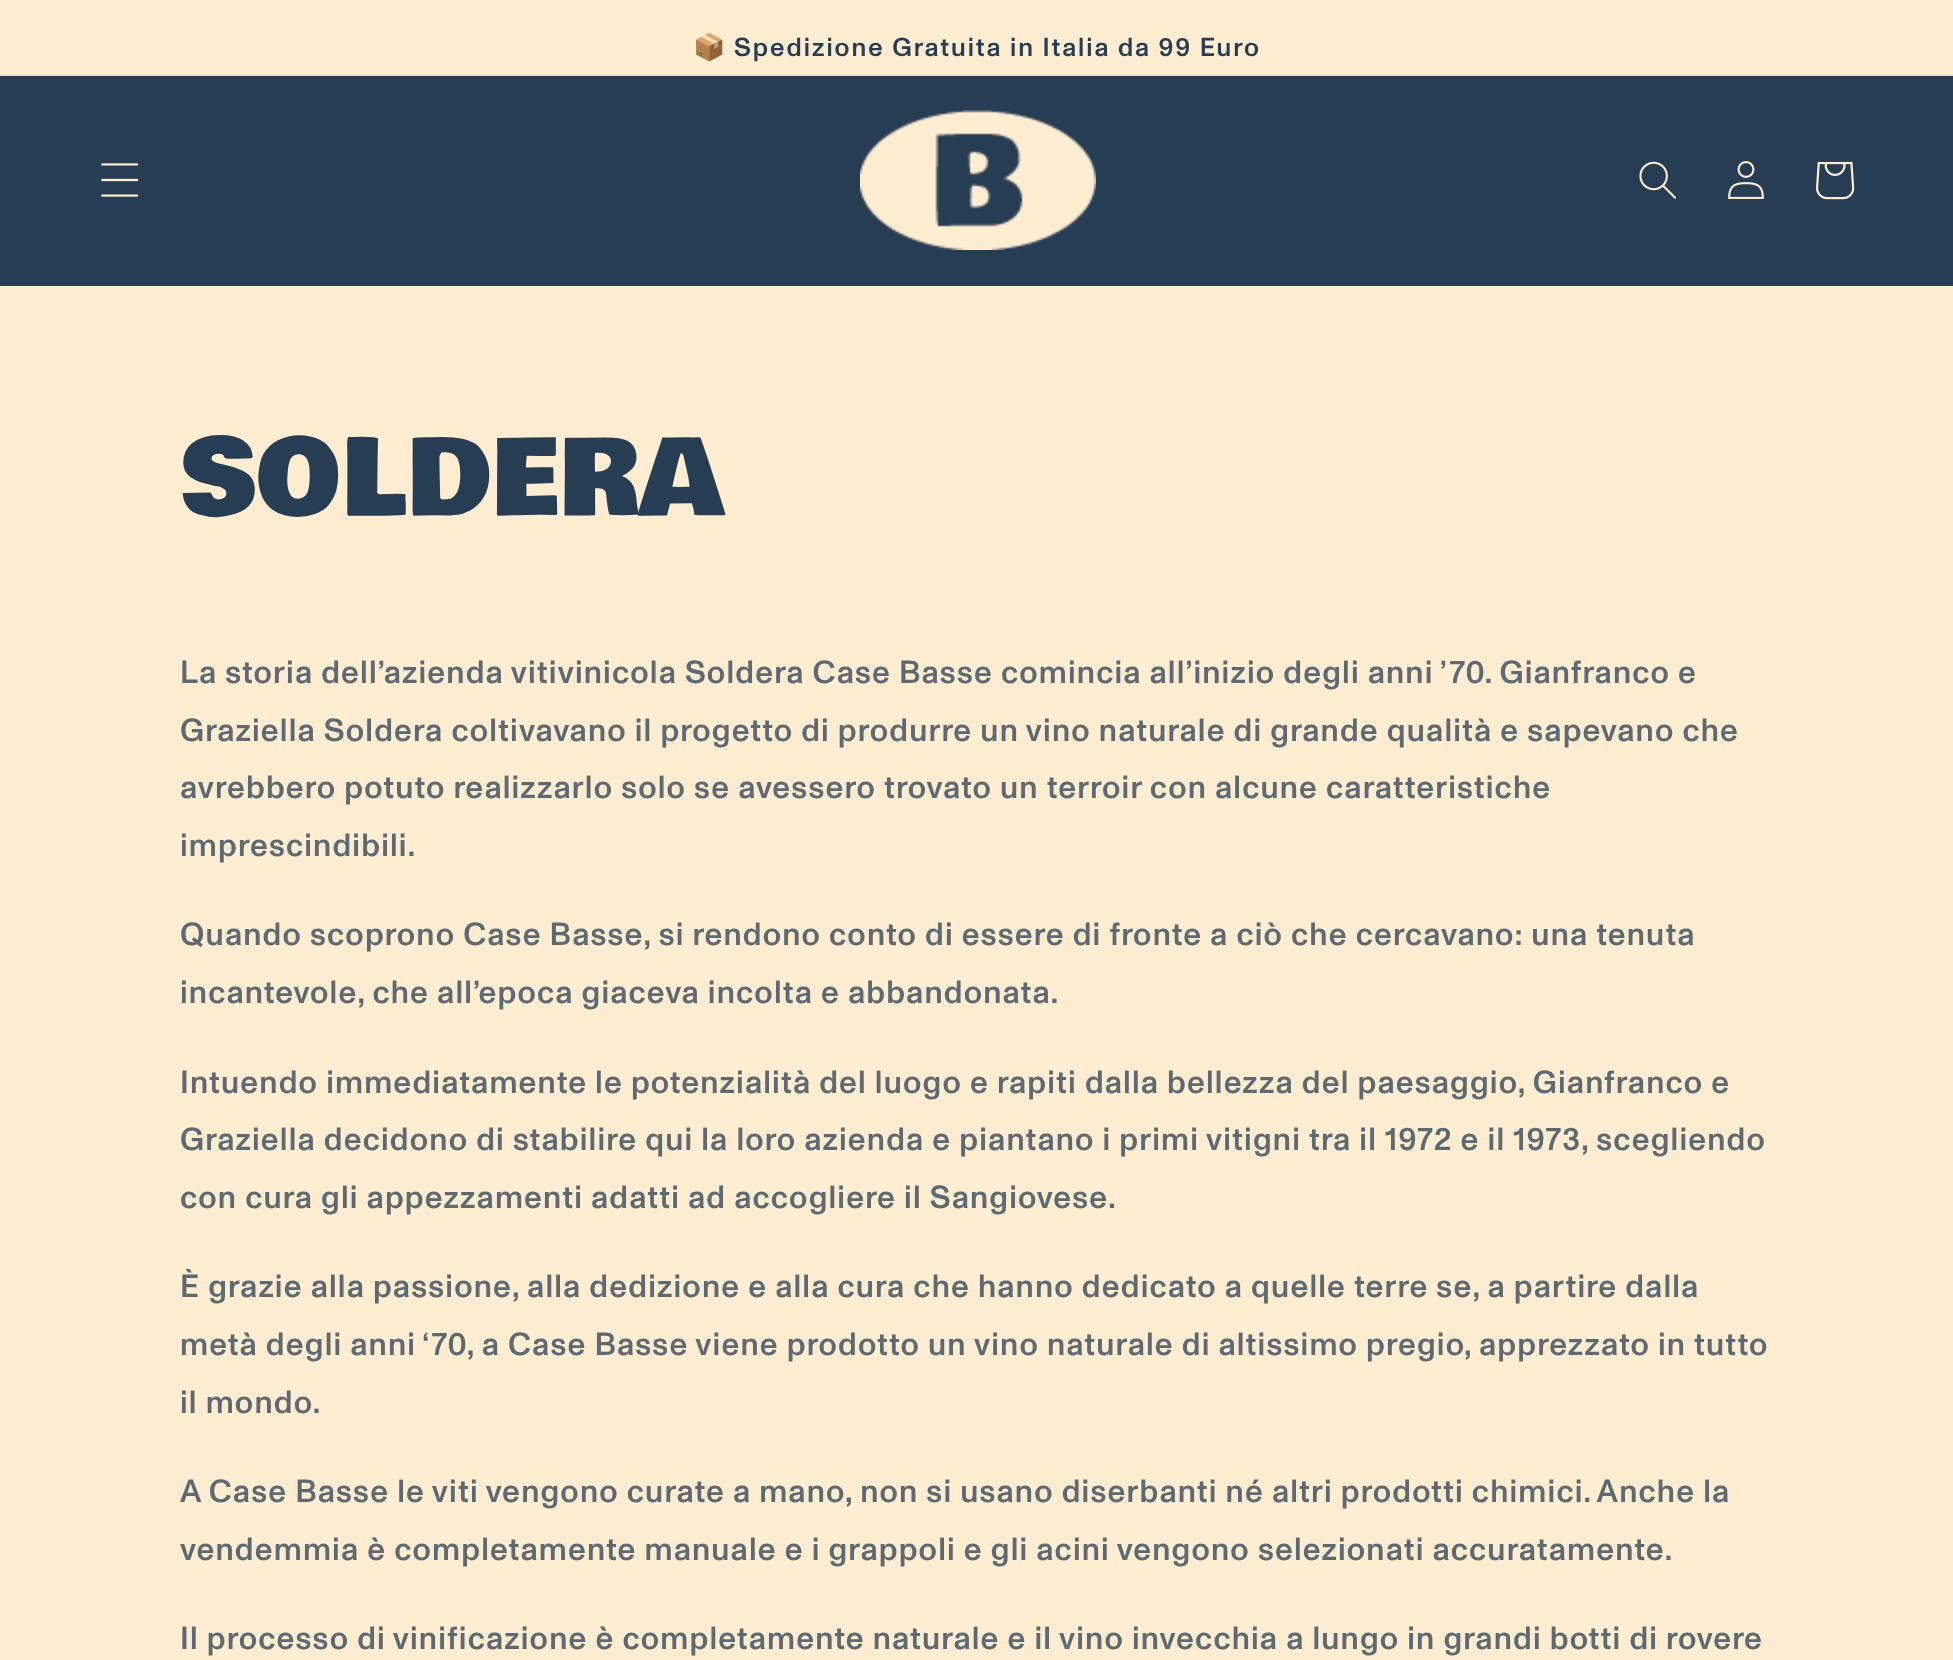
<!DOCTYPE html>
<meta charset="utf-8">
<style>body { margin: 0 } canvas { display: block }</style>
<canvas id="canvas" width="1953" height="1660"></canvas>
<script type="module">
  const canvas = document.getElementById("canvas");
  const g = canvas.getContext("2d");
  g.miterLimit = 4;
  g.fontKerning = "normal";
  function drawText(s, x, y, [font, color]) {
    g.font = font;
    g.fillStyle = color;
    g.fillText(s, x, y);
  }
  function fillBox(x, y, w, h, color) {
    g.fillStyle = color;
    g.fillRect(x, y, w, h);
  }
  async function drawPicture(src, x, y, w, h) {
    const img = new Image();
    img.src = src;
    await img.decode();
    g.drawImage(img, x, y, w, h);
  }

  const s1 = ["26px Noto Color Emoji", "#273D54"];
  const s2 = ["500 26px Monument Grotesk", "#273D54"];
  const s3 = ["104px Bowlby One", "#273D54"];
  const s4 = ["500 32px Monument Grotesk", "#5D6973"];

  fillBox(0, 0, 1953, 1660, "#FFEDD1");
  fillBox(0, 74, 1953, 2, "#EEDFC7");
  g.letterSpacing = "2px";
  drawText("📦", 693, 56, s1);
  drawText("Spedizione Gratuita in Italia da 99 Euro", 734, 56, s2);
  fillBox(0, 76, 1953, 210, "#273D54");
  await drawPicture("pic1.png", 101, 163, 38, 34);
  await drawPicture("pic2.png", 860, 110, 236, 140);
  await drawPicture("pic3.png", 1639, 161, 37, 38);
  await drawPicture("pic4.png", 1728, 161, 36, 38);
  await drawPicture("pic5.png", 1816, 161, 39, 39);
  g.letterSpacing = "1.2px";
  drawText("SOLDERA", 180, 514, s3);
  drawText("La storia dell’azienda vitivinicola Soldera Case Basse comincia all’inizio degli anni ’70. Gianfranco e", 180, 683, s4);
  drawText("Graziella Soldera coltivavano il progetto di produrre un vino naturale di grande qualità e sapevano che", 180, 741, s4);
  drawText("avrebbero potuto realizzarlo solo se avessero trovato un terroir con alcune caratteristiche", 180, 798, s4);
  drawText("imprescindibili.", 180, 856, s4);
  drawText("Quando scoprono Case Basse, si rendono conto di essere di fronte a ciò che cercavano: una tenuta", 180, 945, s4);
  drawText("incantevole, che all’epoca giaceva incolta e abbandonata.", 180, 1003, s4);
  drawText("Intuendo immediatamente le potenzialità del luogo e rapiti dalla bellezza del paesaggio, Gianfranco e", 180, 1093, s4);
  drawText("Graziella decidono di stabilire qui la loro azienda e piantano i primi vitigni tra il 1972 e il 1973, scegliendo", 180, 1150, s4);
  drawText("con cura gli appezzamenti adatti ad accogliere il Sangiovese.", 180, 1208, s4);
  drawText("È grazie alla passione, alla dedizione e alla cura che hanno dedicato a quelle terre se, a partire dalla", 180, 1297, s4);
  drawText("metà degli anni ‘70, a Case Basse viene prodotto un", 180, 1355, s4);
  drawText("vino naturale di altissimo pregio", 974, 1355, s4);
  drawText(", apprezzato in tutto", 1464, 1355, s4);
  drawText("il mondo.", 180, 1413, s4);
  drawText("A Case Basse le viti vengono curate a mano, non si usano diserbanti né altri prodotti chimici. Anche la", 180, 1502, s4);
  drawText("vendemmia è completamente manuale e i grappoli e gli acini vengono selezionati accuratamente.", 180, 1560, s4);
  drawText("Il processo di vinificazione è completamente naturale e il vino invecchia a lungo in grandi botti di rovere", 180, 1649, s4);
</script>
